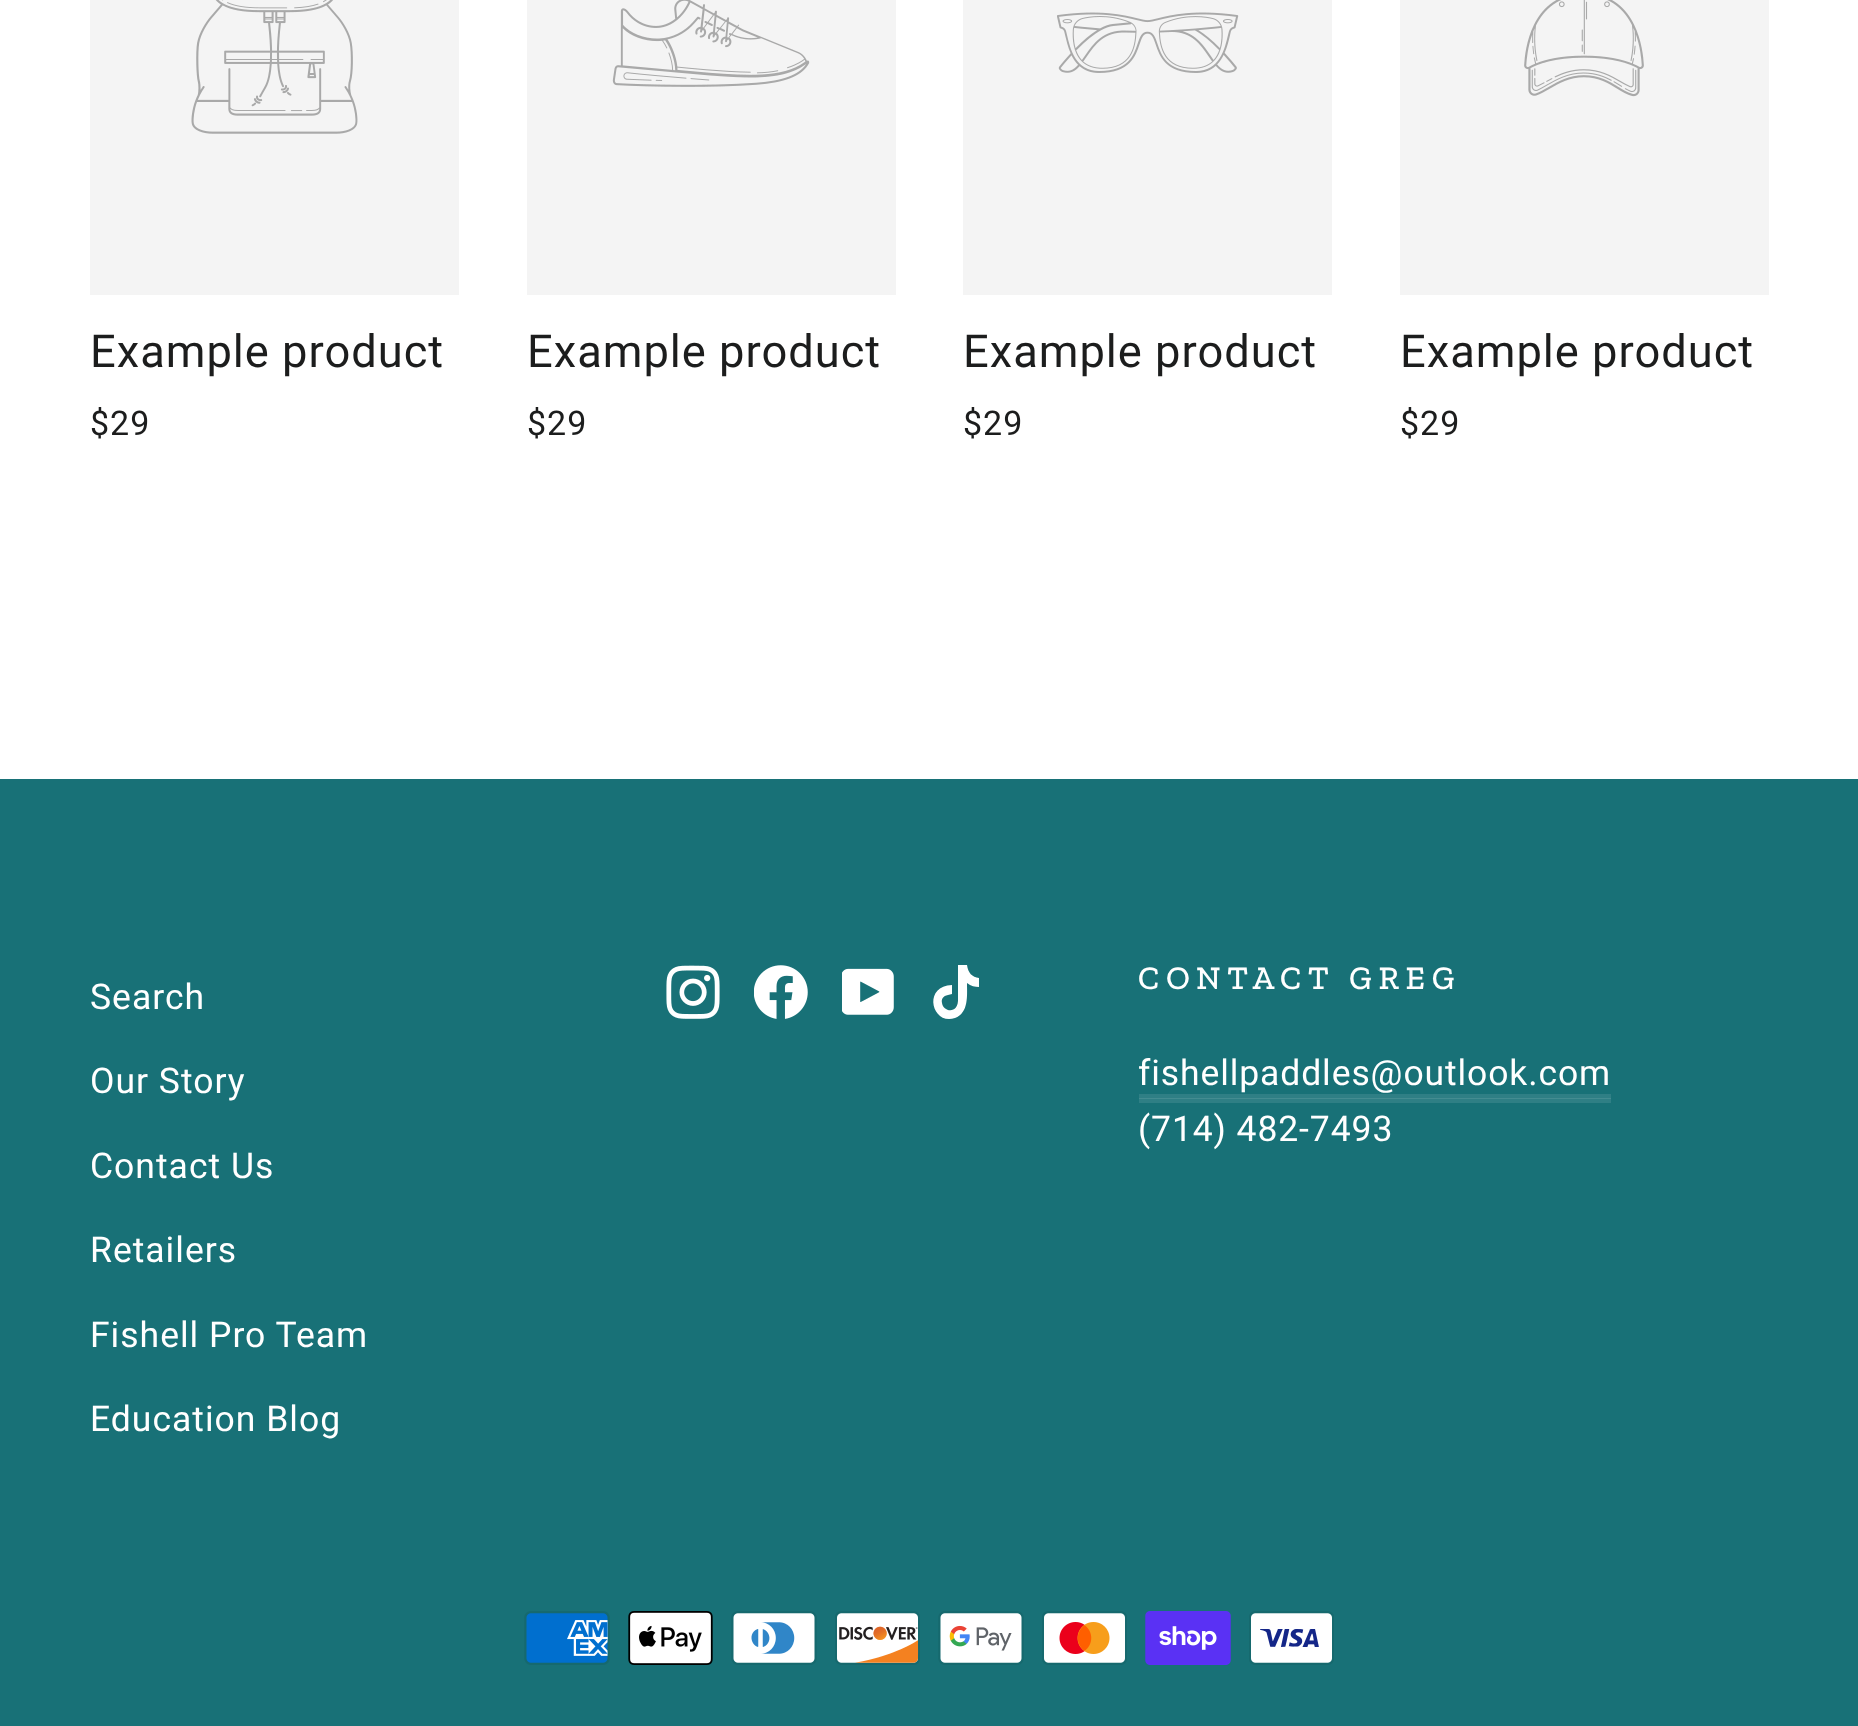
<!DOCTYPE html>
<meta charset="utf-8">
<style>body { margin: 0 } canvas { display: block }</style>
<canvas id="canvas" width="1858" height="1726"></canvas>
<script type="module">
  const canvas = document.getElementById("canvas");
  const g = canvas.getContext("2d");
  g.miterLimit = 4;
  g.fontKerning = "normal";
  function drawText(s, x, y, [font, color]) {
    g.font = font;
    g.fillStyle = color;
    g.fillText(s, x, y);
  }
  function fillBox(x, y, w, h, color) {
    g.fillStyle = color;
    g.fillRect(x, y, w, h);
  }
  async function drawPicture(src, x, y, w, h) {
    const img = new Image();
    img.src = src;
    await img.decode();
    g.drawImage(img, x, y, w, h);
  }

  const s1 = ["45.25px Roboto", "#1C1D1D"];
  const s2 = ["34px Roboto", "#1C1D1D"];
  const s3 = ["35.5px Roboto", "#FFFFFF"];
  const s4 = ["500 33px Zilla Slab", "#FFFFFF"];

  fillBox(0, 0, 1858, 1726, "#FFFFFF");
  fillBox(90, 0, 369, 295, "#F4F4F4");
  await drawPicture("pic1.png", 191, 0, 167, 134);
  g.letterSpacing = "1px";
  drawText("Example product", 90, 367, s1);
  drawText("$29", 90, 435, s2);
  fillBox(527, 0, 369, 295, "#F4F4F4");
  await drawPicture("pic2.png", 612, 0, 198, 87);
  drawText("Example product", 527, 367, s1);
  drawText("$29", 527, 435, s2);
  fillBox(963, 0, 369, 295, "#F4F4F4");
  await drawPicture("pic3.png", 1057, 12, 182, 61);
  drawText("Example product", 963, 367, s1);
  drawText("$29", 963, 435, s2);
  fillBox(1400, 0, 369, 295, "#F4F4F4");
  await drawPicture("pic4.png", 1524, 0, 120, 97);
  drawText("Example product", 1400, 367, s1);
  drawText("$29", 1400, 435, s2);
  fillBox(0, 779, 1858, 947, "#187177");
  fillBox(1139, 1099, 472, 4, "#2F7F85");
  drawText("Search", 90, 1009, s3);
  drawText("Our Story", 90, 1093, s3);
  drawText("Contact Us", 90, 1178, s3);
  drawText("Retailers", 90, 1262, s3);
  drawText("Fishell Pro Team", 90, 1347, s3);
  drawText("Education Blog", 90, 1431, s3);
  await drawPicture("pic5.png", 666, 965, 54, 54);
  await drawPicture("pic6.png", 754, 965, 54, 54);
  await drawPicture("pic7.png", 842, 968, 52, 47);
  g.beginPath();
  g.moveTo(967, 965);
  g.bezierCurveTo(968, 973, 972, 977, 979, 978);
  g.lineTo(979, 987);
  g.bezierCurveTo(975, 987, 971, 986, 967, 983);
  g.bezierCurveTo(967, 995, 969, 1013, 955, 1018);
  g.bezierCurveTo(932, 1026, 922, 986, 952, 985);
  g.lineTo(952, 994);
  g.lineTo(948, 995);
  g.bezierCurveTo(943, 996, 941, 999, 942, 1003);
  g.bezierCurveTo(943, 1012, 959, 1015, 958, 998);
  g.lineTo(958, 965);
  g.closePath();
  g.fill();
  g.letterSpacing = "6.6px";
  drawText("CONTACT GREG", 1138, 989, s4);
  g.letterSpacing = "0.9px";
  drawText("fishellpaddles@outlook.com", 1138, 1085, s3);
  fillBox(1139, 1094, 472, 4, "#2F7F85");
  fillBox(1139, 1098, 472, 1, "#448C91");
  drawText("(714) 482-7493", 1138, 1141, s3);
  await drawPicture("pic8.png", 524, 1611, 86, 54);
  await drawPicture("pic9.png", 628, 1611, 85, 54);
  await drawPicture("pic10.png", 731, 1611, 86, 54);
  await drawPicture("pic11.png", 835, 1611, 85, 54);
  await drawPicture("pic12.png", 938, 1611, 86, 54);
  await drawPicture("pic13.png", 1042, 1611, 85, 54);
  await drawPicture("pic14.png", 1145, 1611, 86, 54);
  await drawPicture("pic15.png", 1249, 1611, 85, 54);
</script>
